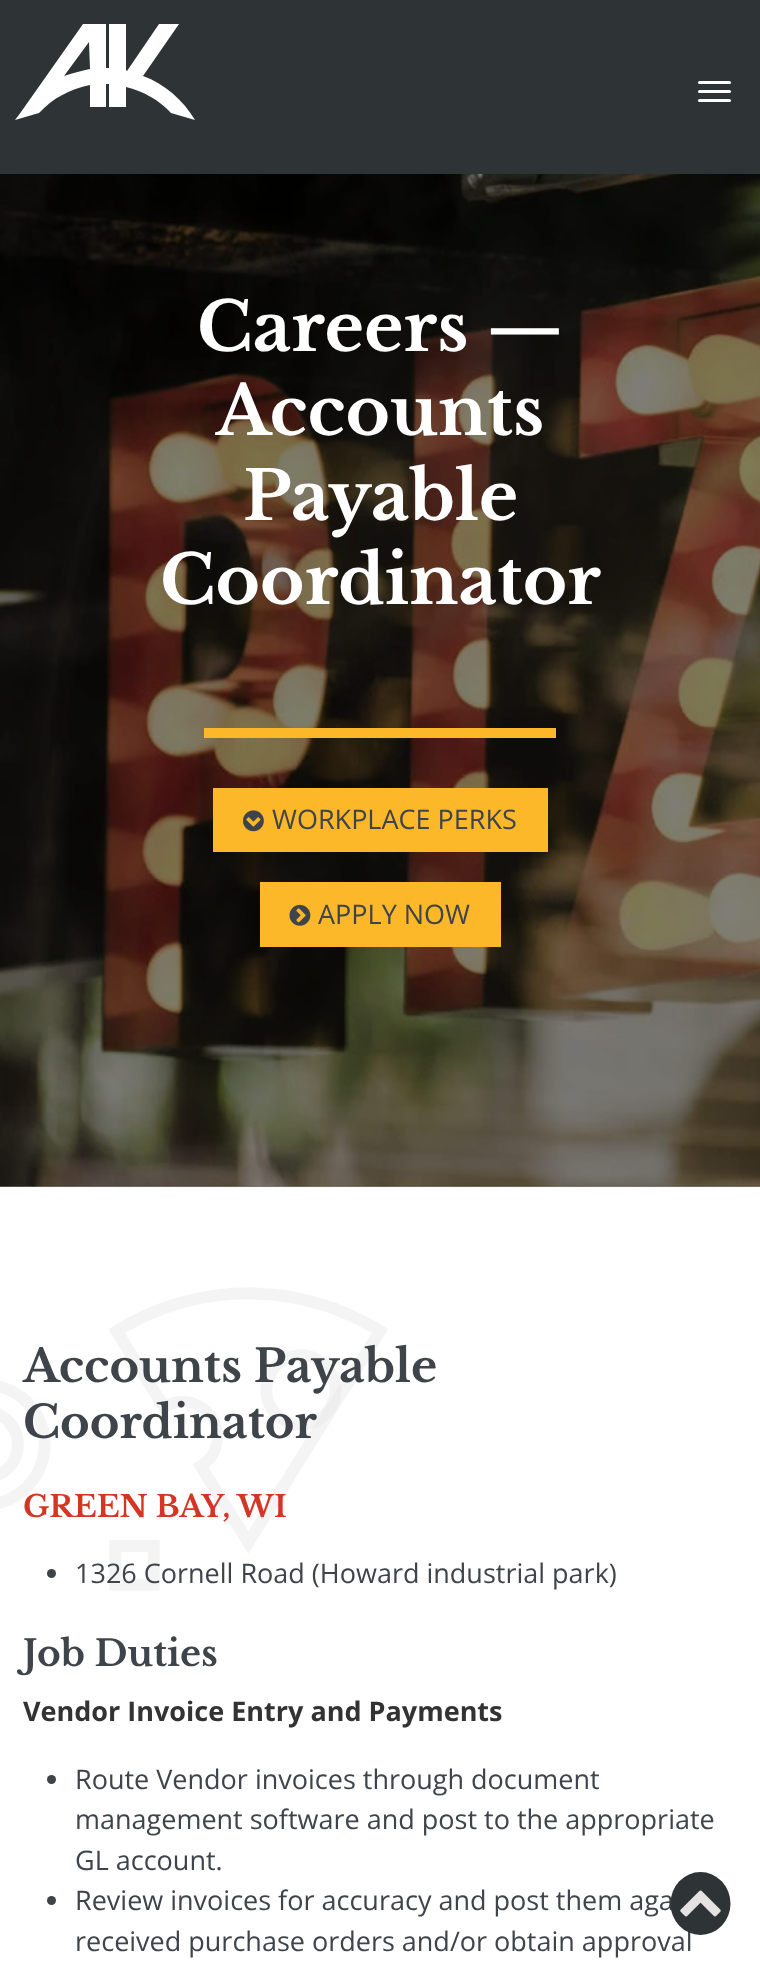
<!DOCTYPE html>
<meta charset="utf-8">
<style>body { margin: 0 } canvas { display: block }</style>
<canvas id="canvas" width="760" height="1965"></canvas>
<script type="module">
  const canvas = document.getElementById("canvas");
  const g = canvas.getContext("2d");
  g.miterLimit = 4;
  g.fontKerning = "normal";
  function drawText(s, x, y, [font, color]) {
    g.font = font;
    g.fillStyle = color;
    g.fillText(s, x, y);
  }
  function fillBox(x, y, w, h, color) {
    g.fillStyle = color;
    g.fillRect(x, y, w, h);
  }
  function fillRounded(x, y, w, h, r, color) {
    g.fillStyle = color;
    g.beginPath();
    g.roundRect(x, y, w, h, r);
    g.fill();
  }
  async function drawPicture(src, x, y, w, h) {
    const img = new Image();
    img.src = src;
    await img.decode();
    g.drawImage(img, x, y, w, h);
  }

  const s1 = ["bold 67.5px Libre Baskerville", "#FFFFFF"];
  const s2 = ["27px Open Sans", "#3F444B"];
  const s3 = ["bold 45px Libre Baskerville", "#3F444B"];
  const s4 = ["bold 30px Libre Baskerville", "#D53524"];
  const s5 = ["bold 36px Libre Baskerville", "#3F444B"];
  const s6 = ["bold 27px Open Sans", "#333333"];

  fillBox(0, 0, 760, 1965, "#FFFFFF");
  fillBox(0, 1186, 760, 1, "#808080");
  fillBox(0, 0, 760, 174, "#2E3335");
  g.fillStyle = "#FFFFFF";
  g.beginPath();
  g.moveTo(39, 113);
  g.bezierCurveTo(53, 98, 70, 89, 90, 85);
  g.lineTo(90, 107);
  g.lineTo(106, 107);
  g.lineTo(106, 84);
  g.lineTo(109, 84);
  g.lineTo(109, 107);
  g.lineTo(126, 107);
  g.lineTo(126, 87);
  g.bezierCurveTo(143, 91, 159, 100, 171, 113);
  g.lineTo(195, 120);
  g.bezierCurveTo(183, 100, 165, 84, 143, 76);
  g.lineTo(179, 24);
  g.lineTo(159, 24);
  g.lineTo(127, 71);
  g.lineTo(126, 70);
  g.lineTo(126, 24);
  g.lineTo(109, 24);
  g.lineTo(109, 68);
  g.lineTo(106, 68);
  g.lineTo(106, 24);
  g.lineTo(83, 24);
  g.lineTo(21, 112);
  g.lineTo(15, 120);
  g.closePath();
  g.moveTo(89, 42);
  g.lineTo(90, 69);
  g.bezierCurveTo(81, 71, 72, 73, 64, 76);
  g.closePath();
  g.fill();
  fillRounded(698, 90, 33, 3, 1.5, "#FFFFFF");
  fillRounded(698, 81, 33, 3, 1.5, "#FFFFFF");
  fillRounded(698, 99, 33, 3, 1.5, "#FFFFFF");
  await drawPicture("pic1.png", 0, 174, 760, 1013);
  drawText("Careers —", 197, 351, s1);
  drawText("Accounts", 216, 435, s1);
  drawText("Payable", 243, 520, s1);
  drawText("Coordinator", 160, 604, s1);
  fillBox(204, 728, 352, 10, "#FDB82A");
  fillBox(213, 788, 335, 64, "#FDB82A");
  await drawPicture("pic2.png", 243, 810, 21, 22);
  drawText("WORKPLACE PERKS", 272, 829, s2);
  fillBox(260, 882, 241, 65, "#FDB82A");
  await drawPicture("pic3.png", 289, 904, 22, 22);
  drawText("APPLY NOW", 318, 924, s2);
  await drawPicture("pic4.png", 0, 1287, 388, 304);
  drawText("Accounts Payable", 23, 1382, s3);
  drawText("Coordinator", 23, 1438, s3);
  drawText("GREEN BAY, WI", 23, 1517, s4);
  g.fillStyle = "#3F444B";
  g.beginPath();
  g.arc(51.5, 1573.5, 4.5, 0, Math.PI * 2);
  g.fill();
  drawText("1326 Cornell Road (Howard industrial park)", 75, 1583, s2);
  drawText("Job Duties", 23, 1666, s5);
  drawText("Vendor Invoice Entry and Payments", 23, 1721, s6);
  g.fillStyle = "#3F444B";
  g.beginPath();
  g.arc(51.5, 1779.5, 4.5, 0, Math.PI * 2);
  g.fill();
  drawText("Route Vendor invoices through document", 75, 1789, s2);
  drawText("management software and post to the appropriate", 75, 1829, s2);
  drawText("GL account.", 75, 1870, s2);
  g.beginPath();
  g.arc(51.5, 1900.5, 4.5, 0, Math.PI * 2);
  g.fill();
  drawText("Review invoices for accuracy and post them aga", 75, 1910, s2);
  drawText("received purchase orders and/or obtain approval", 75, 1951, s2);
  g.fillStyle = "#2E3335";
  g.beginPath();
  g.ellipse(700.5, 1903.5, 30, 31.5, 0, 0, Math.PI * 2);
  g.fill();
  await drawPicture("pic5.png", 680, 1890, 41, 27);
</script>
